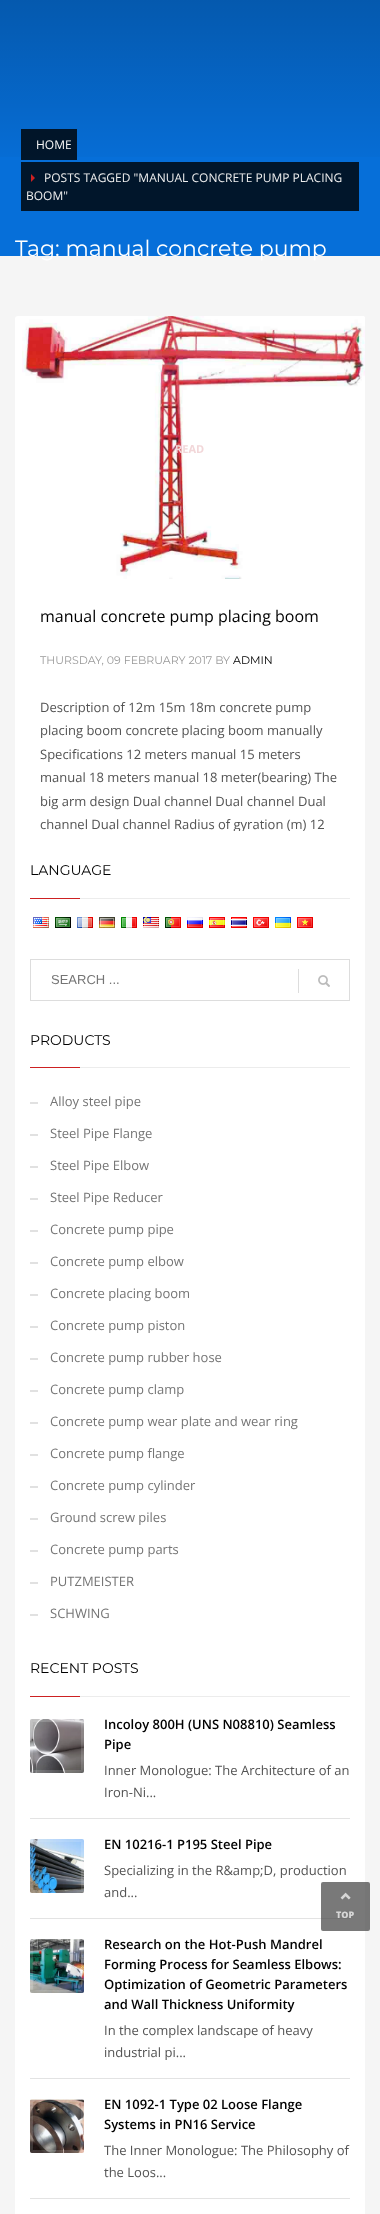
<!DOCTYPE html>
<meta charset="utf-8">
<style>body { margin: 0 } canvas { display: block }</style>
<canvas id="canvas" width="380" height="2214"></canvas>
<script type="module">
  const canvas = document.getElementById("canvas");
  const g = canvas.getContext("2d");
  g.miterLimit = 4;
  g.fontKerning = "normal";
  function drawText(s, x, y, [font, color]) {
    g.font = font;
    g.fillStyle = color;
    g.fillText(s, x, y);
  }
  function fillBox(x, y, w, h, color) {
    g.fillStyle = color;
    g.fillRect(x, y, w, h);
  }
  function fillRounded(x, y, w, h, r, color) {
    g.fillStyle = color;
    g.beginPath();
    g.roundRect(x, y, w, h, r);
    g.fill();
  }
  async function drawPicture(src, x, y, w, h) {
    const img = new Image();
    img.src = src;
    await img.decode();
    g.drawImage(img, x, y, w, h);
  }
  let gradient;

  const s1 = ["12px Open Sans", "#FFFFFF"];
  const s2 = ["12px Open Sans", "#EEEEEE"];
  const s3 = ["100 22px Montserrat", "#FFFFFF"];
  const s4 = ["bold 11px Open Sans", "#F2D7D9"];
  const s5 = ["16px Open Sans", "#000000"];
  const s6 = ["100 11px Montserrat", "#9A9A9A"];
  const s7 = ["100 11px Montserrat", "#000000"];
  const s8 = ["13px Open Sans", "#535353"];
  const s9 = ["100 14px Montserrat", "#000000"];
  const s10 = ["13px Liberation Sans", "#757575"];
  const s11 = ["13px Open Sans", "#757575"];
  const s12 = ["600 13px Open Sans", "#000000"];
  const s13 = ["800 9px Open Sans", "#D7D7D7"];

  fillBox(0, 0, 380, 2214, "#F5F5F5");
  fillBox(0, 0, 380, 256, "#066FD9");
  fillBox(21, 129, 56, 31, "#01162B");
  drawText("HOME", 36, 149, s1);
  gradient = g.createLinearGradient(190, -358, 190, 176);
  gradient.addColorStop(0, "rgba(0, 0, 0, 0.6)");
  gradient.addColorStop(1, "rgba(0, 0, 0, 0)");
  g.fillStyle = gradient;
  g.fillRect(0, 0, 380, 157);
  fillBox(21, 162, 338, 49, "#01162B");
  g.fillStyle = "#CD2122";
  g.beginPath();
  g.moveTo(31, 182);
  g.lineTo(31, 174);
  g.lineTo(35, 178);
  g.closePath();
  g.fill();
  drawText("POSTS TAGGED \"MANUAL CONCRETE PUMP PLACING", 44, 182, s2);
  drawText("BOOM\"", 26, 200, s2);
  drawText("Tag: manual concrete pump", 15, 256, s3);
  fillRounded(15, 316, 350, 684, 3, "#FFFFFF");
  await drawPicture("pic1.png", 22, 316, 343, 263);
  drawText("READ", 175, 453, s4);
  drawText("manual concrete pump placing boom", 40, 622, s5);
  drawText("THURSDAY, 09 FEBRUARY 2017 BY", 40, 664, s6);
  drawText("ADMIN", 233, 664, s7);
  drawText("Description of 12m 15m 18m concrete pump", 40, 712, s8);
  drawText("placing boom concrete placing boom manually", 40, 735, s8);
  drawText("Specifications 12 meters manual 15 meters", 40, 759, s8);
  drawText("manual 18 meters manual 18 meter(bearing) The", 40, 782, s8);
  drawText("big arm design Dual channel Dual channel Dual", 40, 806, s8);
  drawText("channel Dual channel Radius of gyration (m) 12", 40, 829, s8);
  fillRounded(15, 831, 350, 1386, 3, "#FFFFFF");
  drawText("LANGUAGE", 30, 875, s9);
  fillBox(30, 898, 50, 1, "#CD2122");
  fillBox(80, 898, 270, 1, "#ECECEC");
  await drawPicture("pic2.png", 33, 917, 16, 11);
  await drawPicture("pic3.png", 55, 917, 16, 11);
  await drawPicture("pic4.png", 77, 917, 16, 11);
  await drawPicture("pic5.png", 99, 917, 16, 11);
  await drawPicture("pic6.png", 121, 917, 16, 11);
  await drawPicture("pic7.png", 143, 917, 16, 11);
  await drawPicture("pic8.png", 165, 917, 16, 11);
  await drawPicture("pic9.png", 187, 917, 16, 11);
  await drawPicture("pic10.png", 209, 917, 16, 11);
  await drawPicture("pic11.png", 231, 917, 16, 11);
  await drawPicture("pic12.png", 253, 917, 16, 11);
  await drawPicture("pic13.png", 275, 917, 16, 11);
  await drawPicture("pic14.png", 297, 917, 16, 11);
  g.strokeStyle = "#DDDDDD";
  g.strokeRect(30.5, 959.5, 319, 41);
  drawText("SEARCH ...", 51, 984, s10);
  fillBox(298, 969, 1, 24, "#DDDDDD");
  await drawPicture("pic15.png", 318, 975, 12, 12);
  drawText("PRODUCTS", 30, 1045, s9);
  fillBox(30, 1067, 50, 1, "#CD2122");
  fillBox(80, 1067, 270, 1, "#ECECEC");
  fillBox(30, 1102, 8, 2, "#E1E1E1");
  drawText("Alloy steel pipe", 50, 1106, s11);
  fillBox(30, 1134, 8, 2, "#E1E1E1");
  drawText("Steel Pipe Flange", 50, 1138, s11);
  fillBox(30, 1166, 8, 2, "#E1E1E1");
  drawText("Steel Pipe Elbow", 50, 1170, s11);
  fillBox(30, 1198, 8, 2, "#E1E1E1");
  drawText("Steel Pipe Reducer", 50, 1202, s11);
  fillBox(30, 1230, 8, 2, "#E1E1E1");
  drawText("Concrete pump pipe", 50, 1234, s11);
  fillBox(30, 1262, 8, 2, "#E1E1E1");
  drawText("Concrete pump elbow", 50, 1266, s11);
  fillBox(30, 1294, 8, 2, "#E1E1E1");
  drawText("Concrete placing boom", 50, 1298, s11);
  fillBox(30, 1326, 8, 2, "#E1E1E1");
  drawText("Concrete pump piston", 50, 1330, s11);
  fillBox(30, 1358, 8, 2, "#E1E1E1");
  drawText("Concrete pump rubber hose", 50, 1362, s11);
  fillBox(30, 1390, 8, 2, "#E1E1E1");
  drawText("Concrete pump clamp", 50, 1394, s11);
  fillBox(30, 1422, 8, 2, "#E1E1E1");
  drawText("Concrete pump wear plate and wear ring", 50, 1426, s11);
  fillBox(30, 1454, 8, 2, "#E1E1E1");
  drawText("Concrete pump flange", 50, 1458, s11);
  fillBox(30, 1486, 8, 2, "#E1E1E1");
  drawText("Concrete pump cylinder", 50, 1490, s11);
  fillBox(30, 1518, 8, 2, "#E1E1E1");
  drawText("Ground screw piles", 50, 1522, s11);
  fillBox(30, 1550, 8, 2, "#E1E1E1");
  drawText("Concrete pump parts", 50, 1554, s11);
  fillBox(30, 1582, 8, 2, "#E1E1E1");
  drawText("PUTZMEISTER", 50, 1586, s11);
  fillBox(30, 1614, 8, 2, "#E1E1E1");
  drawText("SCHWING", 50, 1618, s11);
  drawText("RECENT POSTS", 30, 1673, s9);
  fillBox(30, 1696, 50, 1, "#CD2122");
  fillBox(80, 1696, 270, 1, "#ECECEC");
  fillBox(30, 1818, 320, 1, "#E3E3E3");
  await drawPicture("pic16.png", 30, 1719, 54, 54);
  g.beginPath();
  g.roundRect(31.5, 1720.5, 51, 51, 1.5);
  g.strokeStyle = "rgba(255, 255, 255, 0.15)";
  g.lineWidth = 3;
  g.stroke();
  drawText("Incoloy 800H (UNS N08810) Seamless", 104, 1729, s12);
  drawText("Pipe", 104, 1749, s12);
  drawText("Inner Monologue: The Architecture of an", 104, 1775, s8);
  drawText("Iron-Ni...", 104, 1797, s8);
  fillBox(30, 1918, 320, 1, "#E3E3E3");
  await drawPicture("pic17.png", 30, 1839, 54, 54);
  g.beginPath();
  g.roundRect(31.5, 1840.5, 51, 51, 1.5);
  g.stroke();
  drawText("EN 10216-1 P195 Steel Pipe", 104, 1849, s12);
  drawText("Specializing in the R&amp;D, production", 104, 1875, s8);
  drawText("and...", 104, 1897, s8);
  fillBox(30, 2078, 320, 1, "#E3E3E3");
  await drawPicture("pic18.png", 30, 1939, 54, 54);
  g.beginPath();
  g.roundRect(31.5, 1940.5, 51, 51, 1.5);
  g.stroke();
  drawText("Research on the Hot-Push Mandrel", 104, 1949, s12);
  drawText("Forming Process for Seamless Elbows:", 104, 1969, s12);
  drawText("Optimization of Geometric Parameters", 104, 1989, s12);
  drawText("and Wall Thickness Uniformity", 104, 2009, s12);
  drawText("In the complex landscape of heavy", 104, 2035, s8);
  drawText("industrial pi...", 104, 2057, s8);
  fillBox(30, 2198, 320, 1, "#E3E3E3");
  await drawPicture("pic19.png", 30, 2099, 54, 54);
  g.beginPath();
  g.roundRect(31.5, 2100.5, 51, 51, 1.5);
  g.stroke();
  drawText("EN 1092-1 Type 02 Loose Flange", 104, 2109, s12);
  drawText("Systems in PN16 Service", 104, 2129, s12);
  drawText("The Inner Monologue: The Philosophy of", 104, 2155, s8);
  drawText("the Loos...", 104, 2177, s8);
  fillRounded(321, 1882, 49, 49, 2, "rgba(64, 64, 64, 0.7)");
  await drawPicture("pic20.png", 340, 1892, 11, 8);
  drawText("TOP", 336, 1918, s13);
</script>
